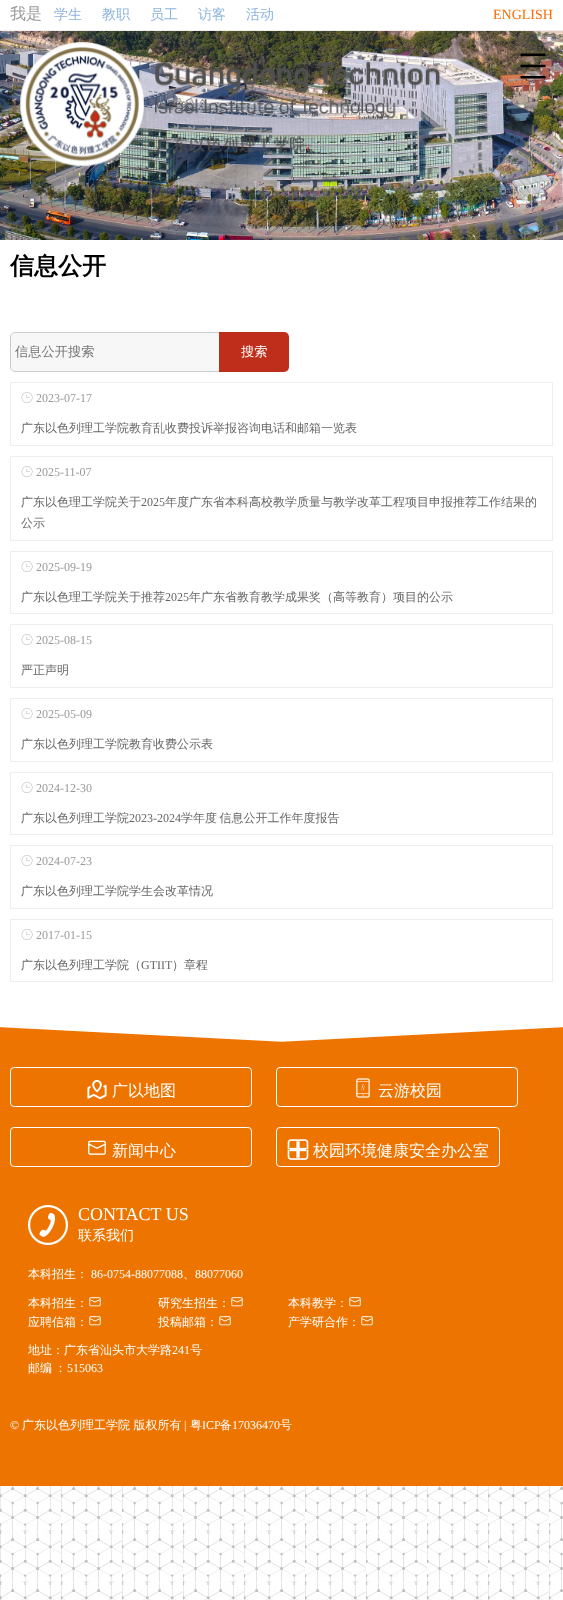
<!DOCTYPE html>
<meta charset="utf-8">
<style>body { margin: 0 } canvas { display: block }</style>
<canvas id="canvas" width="563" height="1600"></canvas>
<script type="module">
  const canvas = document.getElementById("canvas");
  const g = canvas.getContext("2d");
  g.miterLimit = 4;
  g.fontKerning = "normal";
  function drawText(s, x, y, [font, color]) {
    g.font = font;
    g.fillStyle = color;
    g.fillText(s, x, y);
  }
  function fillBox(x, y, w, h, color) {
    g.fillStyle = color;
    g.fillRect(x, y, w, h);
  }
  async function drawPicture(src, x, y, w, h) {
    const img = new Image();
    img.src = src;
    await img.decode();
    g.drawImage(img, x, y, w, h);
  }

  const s1 = ["500 16px WenQuanYi Zen Hei", "#999999"];
  const s2 = ["500 14px WenQuanYi Zen Hei", "#8BB4DD"];
  const s3 = ["14px Liberation Serif", "#FF6A00"];
  const s4 = ["bold 24px WenQuanYi Zen Hei", "#000000"];
  const s5 = ["500 13.25px WenQuanYi Zen Hei", "#757575"];
  const s6 = ["500 13.25px WenQuanYi Zen Hei", "#FFFFFF"];
  const s7 = ["12px Liberation Serif", "#999999"];
  const s8 = ["500 12px WenQuanYi Zen Hei", "#666666"];
  const s9 = ["12px Liberation Serif", "#666666"];
  const s10 = ["500 16px WenQuanYi Zen Hei", "#FFFFFF"];
  const s11 = ["18px Liberation Serif", "#FFFFFF"];
  const s12 = ["500 14px WenQuanYi Zen Hei", "#FFFFFF"];
  const s13 = ["500 12px WenQuanYi Zen Hei", "#FFFFFF"];
  const s14 = ["12px Liberation Serif", "#FFFFFF"];

  fillBox(0, 0, 563, 1600, "#FFFFFF");
  await drawPicture("pic1.png", 0, 1486, 563, 114);
  fillBox(0, 30, 563, 1, "#EEEEEE");
  drawText("我是", 10, 19, s1);
  drawText("学生", 54, 19, s2);
  drawText("教职", 102, 19, s2);
  drawText("员工", 150, 19, s2);
  drawText("访客", 198, 19, s2);
  drawText("活动", 246, 19, s2);
  drawText("ENGLISH", 493, 19, s3);
  await drawPicture("pic4.png", 0, 31, 563, 209);
  await drawPicture("pic2.png", 20, 42, 421, 125);
  await drawPicture("pic3.png", 520, 53, 26, 26);
  await drawPicture("pic5.png", 0, 1024, 563, 18);
  drawText("信息公开", 10, 274, s4);
  g.fillStyle = "#F7F7F7";
  g.beginPath();
  g.roundRect(10.5, 332.5, 239, 39, 4.5);
  g.fill();
  g.strokeStyle = "#CCCCCC";
  g.stroke();
  drawText("信息公开搜索", 15, 356, s5);
  g.fillStyle = "#BF2E1B";
  g.beginPath();
  g.roundRect(219, 332, 70, 40, [0, 5, 5, 0]);
  g.fill();
  drawText("搜索", 241, 356, s6);
  g.strokeStyle = "#EEEEEE";
  g.strokeRect(10.5, 382.5, 542, 63);
  await drawPicture("pic6.png", 21, 392, 12, 11);
  drawText("2023-07-17", 36, 402, s7);
  drawText("广东以色列理工学院教育乱收费投诉举报咨询电话和邮箱一览表", 21, 432, s8);
  g.strokeRect(10.5, 456.5, 542, 84);
  await drawPicture("pic6.png", 21, 466, 12, 11);
  drawText("2025-11-07", 36, 476, s7);
  drawText("广东以色理工学院关于", 21, 506, s8);
  drawText("2025", 141, 506, s9);
  drawText("年度广东省本科高校教学质量与教学改革工程项目申报推荐工作结果的", 165, 506, s8);
  drawText("公示", 21, 527, s8);
  g.strokeRect(10.5, 551.5, 542, 62);
  await drawPicture("pic6.png", 21, 561, 12, 11);
  drawText("2025-09-19", 36, 571, s7);
  drawText("广东以色理工学院关于推荐", 21, 601, s8);
  drawText("2025", 165, 601, s9);
  drawText("年广东省教育教学成果奖（高等教育）项目的公示", 189, 601, s8);
  g.strokeRect(10.5, 624.5, 542, 63);
  await drawPicture("pic6.png", 21, 634, 12, 11);
  drawText("2025-08-15", 36, 644, s7);
  drawText("严正声明", 21, 674, s8);
  g.strokeRect(10.5, 698.5, 542, 63);
  await drawPicture("pic6.png", 21, 708, 12, 11);
  drawText("2025-05-09", 36, 718, s7);
  drawText("广东以色列理工学院教育收费公示表", 21, 748, s8);
  g.strokeRect(10.5, 772.5, 542, 62);
  await drawPicture("pic6.png", 21, 782, 12, 11);
  drawText("2024-12-30", 36, 792, s7);
  drawText("广东以色列理工学院", 21, 822, s8);
  drawText("2023-2024", 129, 822, s9);
  g.wordSpacing = "-1px";
  drawText("学年度 信息公开工作年度报告", 181, 822, s8);
  g.strokeRect(10.5, 845.5, 542, 63);
  await drawPicture("pic6.png", 21, 855, 12, 11);
  g.wordSpacing = "0px";
  drawText("2024-07-23", 36, 865, s7);
  drawText("广东以色列理工学院学生会改革情况", 21, 895, s8);
  g.strokeRect(10.5, 919.5, 542, 62);
  await drawPicture("pic6.png", 21, 929, 12, 11);
  drawText("2017-01-15", 36, 939, s7);
  drawText("广东以色列理工学院（", 21, 969, s8);
  drawText("GTIIT", 141, 969, s9);
  drawText("）章程", 172, 969, s8);
  fillBox(0, 1042, 563, 444, "#EE7400");
  g.beginPath();
  g.roundRect(10.5, 1067.5, 241, 39, 3.5);
  g.strokeStyle = "#FFFFFF";
  g.stroke();
  await drawPicture("pic7.png", 87, 1080, 20, 20);
  drawText("广以地图", 112, 1096, s10);
  g.beginPath();
  g.roundRect(276.5, 1067.5, 241, 39, 3.5);
  g.stroke();
  await drawPicture("pic8.png", 356, 1078, 14, 20);
  drawText("云游校园", 378, 1096, s10);
  g.beginPath();
  g.roundRect(10.5, 1127.5, 241, 39, 3.5);
  g.stroke();
  await drawPicture("pic9.png", 88, 1140, 18, 15);
  drawText("新闻中心", 112, 1156, s10);
  g.beginPath();
  g.roundRect(276.5, 1127.5, 223, 39, 3.5);
  g.stroke();
  await drawPicture("pic10.png", 287, 1139, 22, 21);
  drawText("校园环境健康安全办公室", 313, 1156, s10);
  await drawPicture("pic11.png", 28, 1205, 40, 40);
  drawText("CONTACT US", 78, 1220, s11);
  drawText("联系我们", 78, 1240, s12);
  drawText("本科招生：", 28, 1278, s13);
  drawText("86-0754-88077088", 91, 1278, s14);
  drawText("、", 183, 1278, s13);
  drawText("88077060", 195, 1278, s14);
  drawText("本科招生：", 28, 1307, s13);
  await drawPicture("pic12.png", 89, 1297, 12, 10);
  drawText("研究生招生：", 158, 1307, s13);
  await drawPicture("pic12.png", 231, 1297, 12, 10);
  drawText("本科教学：", 288, 1307, s13);
  await drawPicture("pic12.png", 349, 1297, 12, 10);
  drawText("应聘信箱：", 28, 1326, s13);
  await drawPicture("pic12.png", 89, 1316, 12, 10);
  drawText("投稿邮箱：", 158, 1326, s13);
  await drawPicture("pic12.png", 219, 1316, 12, 10);
  drawText("产学研合作：", 288, 1326, s13);
  await drawPicture("pic12.png", 361, 1316, 12, 10);
  drawText("地址：广东省汕头市大学路", 28, 1354, s13);
  drawText("241", 172, 1354, s14);
  drawText("号", 190, 1354, s13);
  g.wordSpacing = "-1px";
  drawText("邮编 ：", 28, 1372, s13);
  g.wordSpacing = "0px";
  drawText("515063", 67, 1372, s14);
  drawText("©", 10, 1429, s14);
  drawText("广东以色列理工学院 版权所有", 22, 1429, s13);
  drawText("|", 184, 1429, s14);
  drawText("粤", 190, 1429, s13);
  drawText("ICP", 202, 1429, s14);
  drawText("备", 220, 1429, s13);
  drawText("17036470", 232, 1429, s14);
  drawText("号", 280, 1429, s13);
</script>
